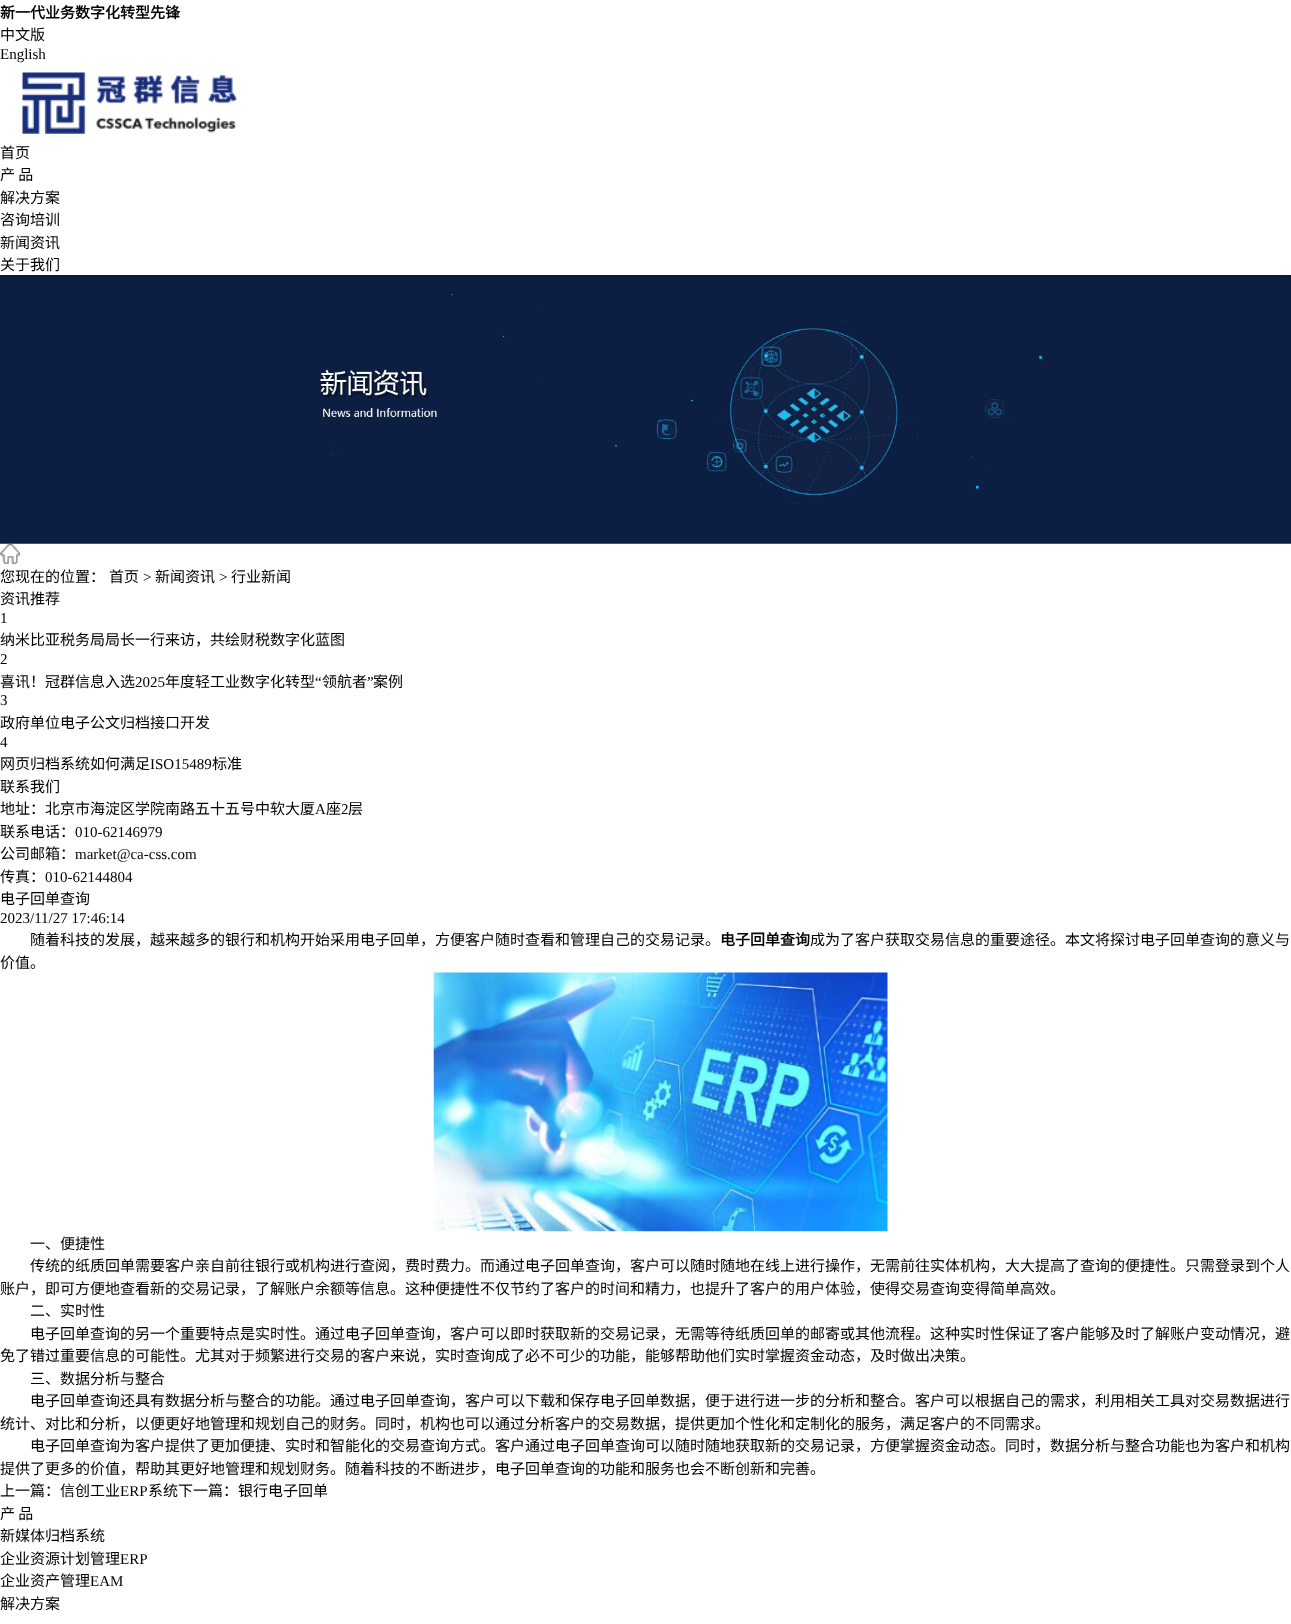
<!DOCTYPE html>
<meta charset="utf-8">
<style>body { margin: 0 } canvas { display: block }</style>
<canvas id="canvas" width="1291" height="1624"></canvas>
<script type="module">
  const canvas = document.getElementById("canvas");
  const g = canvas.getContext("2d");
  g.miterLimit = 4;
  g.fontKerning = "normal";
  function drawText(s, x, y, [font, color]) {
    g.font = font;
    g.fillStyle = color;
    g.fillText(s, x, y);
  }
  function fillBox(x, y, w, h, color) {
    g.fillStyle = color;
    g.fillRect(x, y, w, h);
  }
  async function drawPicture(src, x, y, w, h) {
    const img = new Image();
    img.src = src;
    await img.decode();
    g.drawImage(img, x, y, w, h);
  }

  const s1 = ["bold 15px Noto Sans CJK SC", "#000000"];
  const s2 = ["15px Noto Sans CJK SC", "#000000"];
  const s3 = ["15px Liberation Serif", "#000000"];

  fillBox(0, 0, 1291, 1624, "#FFFFFF");
  drawText("新一代业务数字化转型先锋", 0, 18, s1);
  drawText("中文版", 0, 40, s2);
  drawText("English", 0, 59, s3);
  await drawPicture("pic1.png", 22, 72, 215, 62);
  drawText("首页", 0, 158, s2);
  drawText("产 品", 0, 180, s2);
  drawText("解决方案", 0, 203, s2);
  drawText("咨询培训", 0, 225, s2);
  drawText("新闻资讯", 0, 248, s2);
  drawText("关于我们", 0, 270, s2);
  await drawPicture("pic2.png", 0, 275, 1291, 269);
  await drawPicture("pic3.png", 0, 543, 20, 21);
  drawText("您现在的位置：", 0, 582, s2);
  drawText("首页", 109, 582, s2);
  drawText(">", 143, 582, s3);
  drawText("新闻资讯", 155, 582, s2);
  drawText(">", 219, 582, s3);
  drawText("行业新闻", 231, 582, s2);
  drawText("资讯推荐", 0, 604, s2);
  drawText("1", 0, 623, s3);
  drawText("纳米比亚税务局局长一行来访，共绘财税数字化蓝图", 0, 645, s2);
  drawText("2", 0, 664, s3);
  drawText("喜讯！冠群信息入选", 0, 687, s2);
  drawText("2025", 135, 687, s3);
  drawText("年度轻工业数字化转型", 165, 687, s2);
  drawText("“", 315, 687, s3);
  drawText("领航者", 322, 687, s2);
  drawText("”", 367, 687, s3);
  drawText("案例", 373, 687, s2);
  drawText("3", 0, 705, s3);
  drawText("政府单位电子公文归档接口开发", 0, 728, s2);
  drawText("4", 0, 747, s3);
  drawText("网页归档系统如何满足", 0, 769, s2);
  drawText("ISO15489", 150, 769, s3);
  drawText("标准", 212, 769, s2);
  drawText("联系我们", 0, 792, s2);
  drawText("地址：北京市海淀区学院南路五十五号中软大厦", 0, 814, s2);
  drawText("A", 315, 814, s3);
  drawText("座", 326, 814, s2);
  drawText("2", 341, 814, s3);
  drawText("层", 348, 814, s2);
  drawText("联系电话：", 0, 837, s2);
  drawText("010-62146979", 75, 837, s3);
  drawText("公司邮箱：", 0, 859, s2);
  drawText("market@ca-css.com", 75, 859, s3);
  drawText("传真：", 0, 882, s2);
  drawText("010-62144804", 45, 882, s3);
  drawText("电子回单查询", 0, 904, s2);
  drawText("2023/11/27 17:46:14", 0, 923, s3);
  drawText("随着科技的发展，越来越多的银行和机构开始采用电子回单，方便客户随时查看和管理自己的交易记录。", 30, 945, s2);
  drawText("电子回单查询", 720, 945, s1);
  drawText("成为了客户获取交易信息的重要途径。本文将探讨电子回单查询的意义与", 810, 945, s2);
  drawText("价值。", 0, 968, s2);
  await drawPicture("pic4.png", 433, 972, 455, 260);
  drawText("一、便捷性", 30, 1249, s2);
  drawText("传统的纸质回单需要客户亲自前往银行或机构进行查阅，费时费力。而通过电子回单查询，客户可以随时随地在线上进行操作，无需前往实体机构，大大提高了查询的便捷性。只需登录到个人", 30, 1271, s2);
  drawText("账户，即可方便地查看新的交易记录，了解账户余额等信息。这种便捷性不仅节约了客户的时间和精力，也提升了客户的用户体验，使得交易查询变得简单高效。", 0, 1294, s2);
  drawText("二、实时性", 30, 1316, s2);
  drawText("电子回单查询的另一个重要特点是实时性。通过电子回单查询，客户可以即时获取新的交易记录，无需等待纸质回单的邮寄或其他流程。这种实时性保证了客户能够及时了解账户变动情况，避", 30, 1339, s2);
  drawText("免了错过重要信息的可能性。尤其对于频繁进行交易的客户来说，实时查询成了必不可少的功能，能够帮助他们实时掌握资金动态，及时做出决策。", 0, 1361, s2);
  drawText("三、数据分析与整合", 30, 1384, s2);
  drawText("电子回单查询还具有数据分析与整合的功能。通过电子回单查询，客户可以下载和保存电子回单数据，便于进行进一步的分析和整合。客户可以根据自己的需求，利用相关工具对交易数据进行", 30, 1406, s2);
  drawText("统计、对比和分析，以便更好地管理和规划自己的财务。同时，机构也可以通过分析客户的交易数据，提供更加个性化和定制化的服务，满足客户的不同需求。", 0, 1429, s2);
  drawText("电子回单查询为客户提供了更加便捷、实时和智能化的交易查询方式。客户通过电子回单查询可以随时随地获取新的交易记录，方便掌握资金动态。同时，数据分析与整合功能也为客户和机构", 30, 1451, s2);
  drawText("提供了更多的价值，帮助其更好地管理和规划财务。随着科技的不断进步，电子回单查询的功能和服务也会不断创新和完善。‍", 0, 1474, s2);
  drawText("上一篇：信创工业", 0, 1496, s2);
  drawText("ERP", 120, 1496, s3);
  drawText("系统下一篇：银行电子回单", 148, 1496, s2);
  drawText("产 品", 0, 1519, s2);
  drawText("新媒体归档系统", 0, 1541, s2);
  drawText("企业资源计划管理", 0, 1564, s2);
  drawText("ERP", 120, 1564, s3);
  drawText("企业资产管理", 0, 1586, s2);
  drawText("EAM", 90, 1586, s3);
  drawText("解决方案", 0, 1609, s2);
</script>
